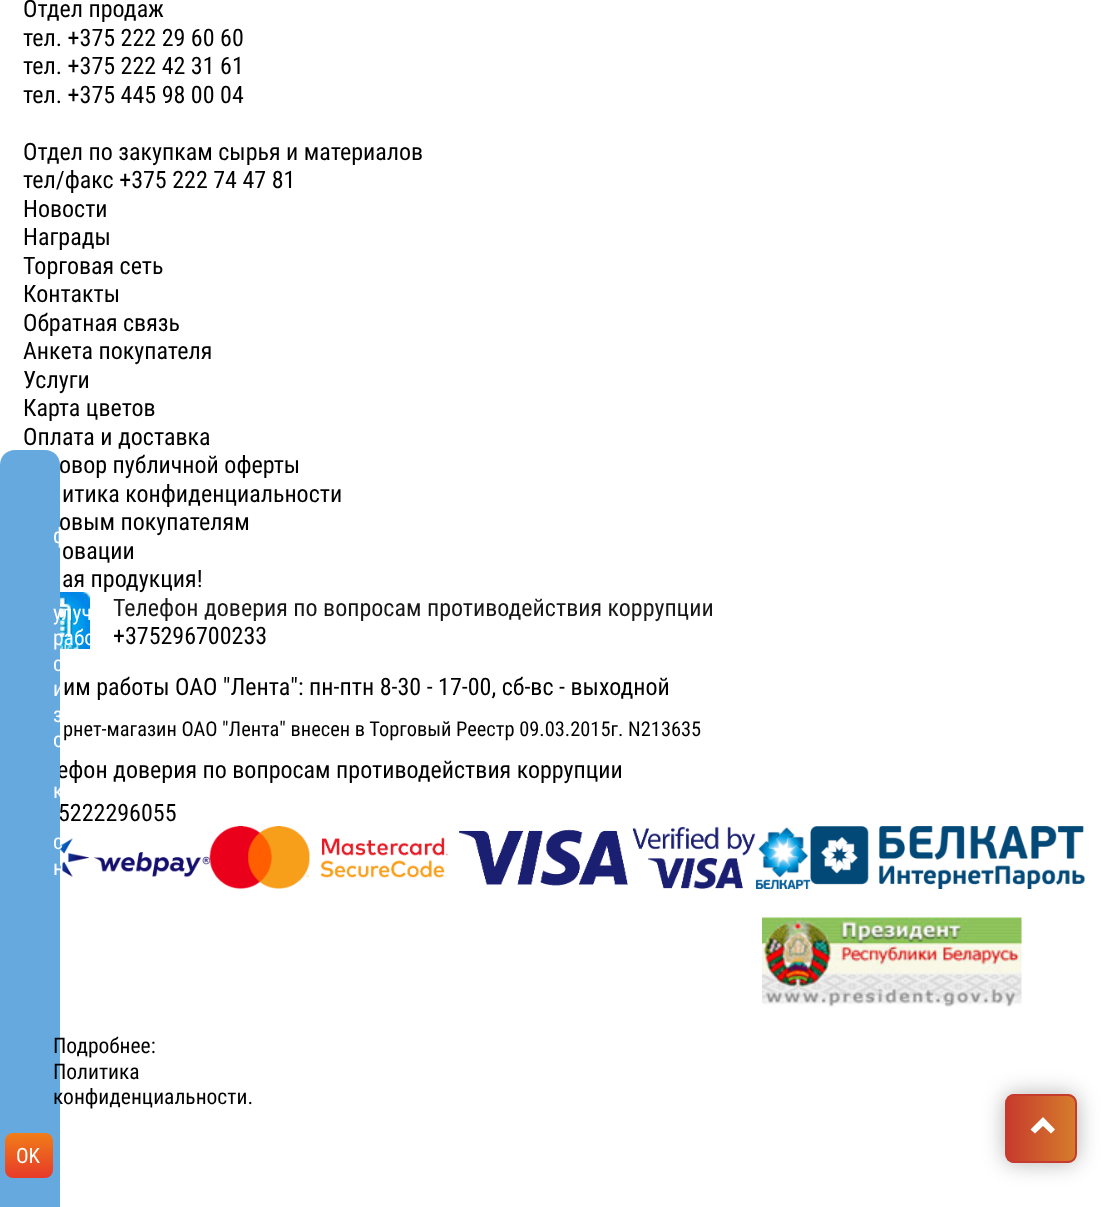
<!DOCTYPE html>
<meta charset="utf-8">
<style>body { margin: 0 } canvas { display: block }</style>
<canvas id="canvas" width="1106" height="1207"></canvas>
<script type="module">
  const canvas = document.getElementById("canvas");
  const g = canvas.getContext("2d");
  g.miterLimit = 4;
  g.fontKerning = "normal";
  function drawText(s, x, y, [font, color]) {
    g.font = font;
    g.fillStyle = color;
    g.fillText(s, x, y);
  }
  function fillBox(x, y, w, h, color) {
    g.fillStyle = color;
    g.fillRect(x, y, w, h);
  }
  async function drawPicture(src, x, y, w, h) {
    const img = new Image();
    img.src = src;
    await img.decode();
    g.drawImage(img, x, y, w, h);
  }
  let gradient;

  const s1 = ["24px Roboto Condensed", "#000000"];
  const s2 = ["21.5px Roboto Condensed", "#FFFFFF"];
  const s3 = ["21.5px Roboto Condensed", "#000000"];
  const s4 = ["21px Roboto Condensed", "#FFFFFF"];
  const s5 = ["24px Roboto Condensed", "#181818"];
  const s6 = ["20.4px Roboto Condensed", "#000000"];

  fillBox(0, 0, 1106, 1207, "#FFFFFF");
  drawText("Отдел продаж", 23, 17, s1);
  drawText("тел. +375 222 29 60 60", 23, 46, s1);
  drawText("тел. +375 222 42 31 61", 23, 74, s1);
  drawText("тел. +375 445 98 00 04", 23, 103, s1);
  drawText("Отдел по закупкам сырья и материалов", 23, 160, s1);
  drawText("тел/факс +375 222 74 47 81", 23, 188, s1);
  drawText("Новости", 23, 217, s1);
  drawText("Награды", 23, 245, s1);
  drawText("Торговая сеть", 23, 274, s1);
  drawText("Контакты", 23, 302, s1);
  drawText("Обратная связь", 23, 331, s1);
  drawText("Анкета покупателя", 23, 359, s1);
  drawText("Услуги", 23, 388, s1);
  drawText("Карта цветов", 23, 416, s1);
  drawText("Оплата и доставка", 23, 445, s1);
  drawText("овор публичной оферты", 59, 473, s1);
  drawText("итика конфиденциальности", 62, 502, s1);
  drawText("овым покупателям", 59, 530, s1);
  drawText("овации", 62, 559, s1);
  drawText("ая продукция!", 62, 587, s1);
  drawText("ефон доверия по вопросам противодействия коррупции", 57, 778, s1);
  drawText("5222296055", 58, 821, s1);
  g.fillStyle = "#66A9DF";
  g.beginPath();
  g.moveTo(15, 450);
  g.lineTo(45, 450);
  g.bezierCurveTo(53.5, 450, 60, 456.5, 60, 465);
  g.lineTo(60, 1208);
  g.lineTo(0, 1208);
  g.lineTo(0, 465);
  g.bezierCurveTo(0, 456.5, 6.5, 450, 15, 450);
  g.closePath();
  g.fill();
  drawText("ф", 53, 543, s2);
  await drawPicture("pic1.png", 60, 592, 30, 57);
  drawText("улуч", 53, 620, s2);
  drawText("рабо", 53, 645, s2);
  drawText("с", 53, 671, s2);
  drawText("и", 53, 696, s2);
  drawText("з", 53, 722, s2);
  drawText("о", 53, 747, s2);
  drawText("к", 53, 798, s2);
  await drawPicture("pic2.png", 60, 826, 1025, 63);
  drawText("с", 53, 849, s2);
  drawText("н", 53, 875, s2);
  drawText("Подробнее:", 53, 1053, s3);
  drawText("Политика", 53, 1079, s3);
  drawText("конфиденциальности.", 53, 1104, s3);
  gradient = g.createLinearGradient(28, 1133, 29, 1178);
  gradient.addColorStop(0, "#F17D18");
  gradient.addColorStop(1, "#E73A29");
  g.fillStyle = gradient;
  g.beginPath();
  g.roundRect(5, 1133, 48, 45, 8);
  g.fill();
  drawText("OK", 16, 1163, s4);
  drawText("Телефон доверия по вопросам противодействия коррупции", 113, 616, s5);
  drawText("+375296700233", 113, 644, s1);
  drawText("им работы ОАО \"Лента\": пн-птн 8-30 - 17-00, сб-вс - выходной", 63, 695, s1);
  drawText("рнет-магазин ОАО \"Лента\" внесен в Торговый Реестр 09.03.2015г. N213635", 63, 736, s6);
  await drawPicture("pic3.png", 762, 917, 260, 91);
  g.fillStyle = "rgba(0, 0, 0, 0.3)";
  g.filter = "blur(11px)";
  g.beginPath();
  g.roundRect(1005, 1094, 72, 69, 9);
  g.fill();
  g.filter = "none";
  g.save();
  g.beginPath();
  g.roundRect(1005, 1094, 72, 69, 9);
  g.clip();
  gradient = g.createLinearGradient(1007, 1128, 1076, 1128);
  gradient.addColorStop(0, "#C73B2E");
  gradient.addColorStop(1, "#D67D2B");
  g.fillStyle = gradient;
  g.fillRect(1007, 1094, 69, 69);
  g.restore();
  g.beginPath();
  g.roundRect(1006, 1095, 70, 67, 8);
  g.strokeStyle = "#C73B2E";
  g.lineWidth = 2;
  g.stroke();
  g.fillStyle = "#FFFFFF";
  g.beginPath();
  g.moveTo(1055, 1129.5);
  g.lineTo(1051, 1133.5);
  g.lineTo(1043, 1126);
  g.lineTo(1035, 1133.5);
  g.lineTo(1030.5, 1129.5);
  g.lineTo(1043, 1117);
  g.closePath();
  g.fill();
</script>
